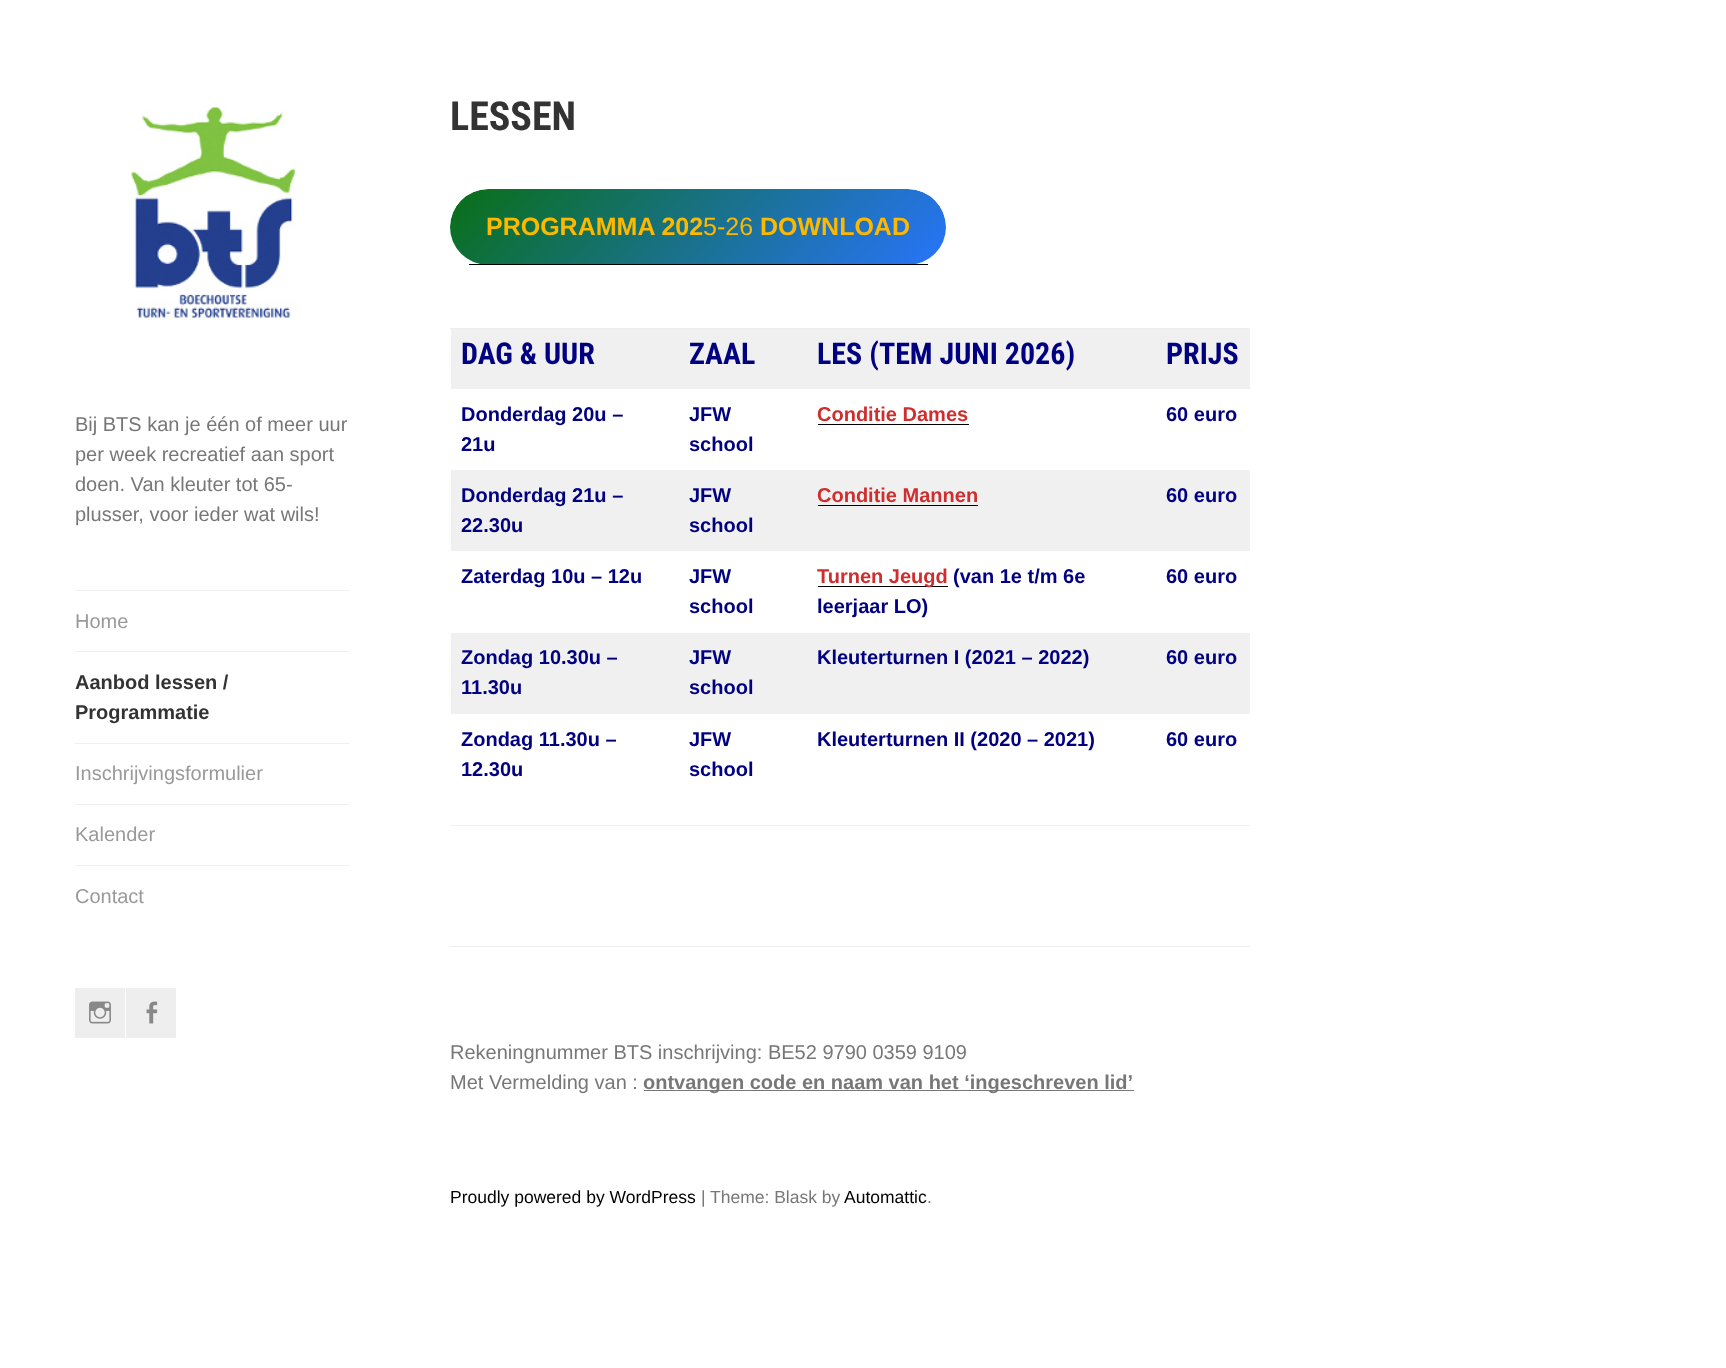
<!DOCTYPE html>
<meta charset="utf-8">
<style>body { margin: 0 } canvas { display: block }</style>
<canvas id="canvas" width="1726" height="1368"></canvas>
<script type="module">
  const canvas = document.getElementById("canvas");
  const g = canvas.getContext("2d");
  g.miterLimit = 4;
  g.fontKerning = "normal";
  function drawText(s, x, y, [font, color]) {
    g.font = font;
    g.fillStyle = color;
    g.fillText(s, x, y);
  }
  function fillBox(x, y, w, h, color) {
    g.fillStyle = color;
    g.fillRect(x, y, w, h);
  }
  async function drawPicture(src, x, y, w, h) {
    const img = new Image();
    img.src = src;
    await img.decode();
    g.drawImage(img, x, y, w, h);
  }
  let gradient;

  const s1 = ["20px Arimo", "#777777"];
  const s2 = ["20px Arimo", "#999999"];
  const s3 = ["bold 20px Arimo", "#333333"];
  const s4 = ["bold 40px Roboto Condensed", "#333333"];
  const s5 = ["bold 25px Arimo", "#FCB900"];
  const s6 = ["25px Arimo", "#FCB900"];
  const s7 = ["bold 30px Roboto Condensed", "#000080"];
  const s8 = ["bold 20px Arimo", "#000080"];
  const s9 = ["bold 20px Arimo", "#CF2E2E"];
  const s10 = ["bold 20px Arimo", "#777777"];
  const s11 = ["17.5px Arimo", "#000000"];
  const s12 = ["17.5px Arimo", "#777777"];

  fillBox(0, 0, 1726, 1368, "#FFFFFF");
  await drawPicture("pic1.png", 131, 106, 165, 214);
  drawText("Bij BTS kan je één of meer uur", 75, 431, s1);
  drawText("per week recreatief aan sport", 75, 461, s1);
  drawText("doen. Van kleuter tot 65-", 75, 491, s1);
  drawText("plusser, voor ieder wat wils!", 75, 521, s1);
  fillBox(75, 590, 275, 1, "#F0F0F0");
  drawText("Home", 75, 628, s2);
  fillBox(75, 651, 275, 1, "#F0F0F0");
  drawText("Aanbod lessen /", 75, 689, s3);
  drawText("Programmatie", 75, 719, s3);
  fillBox(75, 743, 275, 1, "#F0F0F0");
  drawText("Inschrijvingsformulier", 75, 780, s2);
  fillBox(75, 804, 275, 1, "#F0F0F0");
  drawText("Kalender", 75, 841, s2);
  fillBox(75, 865, 275, 1, "#F0F0F0");
  drawText("Contact", 75, 903, s2);
  fillBox(75, 988, 50, 50, "#EEEEEE");
  await drawPicture("pic2.png", 89, 1001, 22, 23);
  fillBox(126, 988, 50, 50, "#EEEEEE");
  await drawPicture("pic3.png", 146, 1001, 12, 23);
  drawText("LESSEN", 450, 130, s4);
  g.save();
  g.beginPath();
  g.roundRect(450, 189, 496, 76, 38);
  g.clip();
  gradient = g.createLinearGradient(555, 83, 841, 369);
  gradient.addColorStop(0, "#096F15");
  gradient.addColorStop(1, "#2874FC");
  g.fillStyle = gradient;
  g.beginPath();
  g.roundRect(450, 189, 496, 75, [38, 38, 0, 0]);
  g.fill();
  g.restore();
  fillBox(469, 264, 459, 1, "#000000");
  drawText("PROGRAMMA 202", 486, 235, s5);
  drawText("5-26", 703, 235, s6);
  drawText("DOWNLOAD", 760, 235, s5);
  fillBox(450, 825, 800, 1, "#F0F0F0");
  fillBox(450, 328, 800, 1, "#EEEEEE");
  fillBox(451, 329, 799, 60, "#F0F0F0");
  drawText("DAG & UUR", 461, 364, s7);
  drawText("ZAAL", 689, 364, s7);
  drawText("LES (TEM JUNI 2026)", 817, 364, s7);
  drawText("PRIJS", 1166, 364, s7);
  drawText("Donderdag 20u –", 461, 421, s8);
  drawText("21u", 461, 451, s8);
  drawText("JFW", 689, 421, s8);
  drawText("school", 689, 451, s8);
  drawText("Conditie Dames", 817, 421, s9);
  fillBox(818, 424, 151, 1, "#000000");
  drawText("60 euro", 1166, 421, s8);
  fillBox(451, 470, 799, 81, "#F0F0F0");
  drawText("Donderdag 21u –", 461, 502, s8);
  drawText("22.30u", 461, 532, s8);
  drawText("JFW", 689, 502, s8);
  drawText("school", 689, 532, s8);
  drawText("Conditie Mannen", 817, 502, s9);
  fillBox(818, 505, 160, 1, "#000000");
  drawText("60 euro", 1166, 502, s8);
  drawText("Zaterdag 10u – 12u", 461, 583, s8);
  drawText("JFW", 689, 583, s8);
  drawText("school", 689, 613, s8);
  fillBox(818, 586, 130, 1, "#000000");
  drawText("Turnen Jeugd", 817, 583, s9);
  drawText("(van 1e t/m 6e", 953, 583, s8);
  drawText("leerjaar LO)", 817, 613, s8);
  drawText("60 euro", 1166, 583, s8);
  fillBox(451, 633, 799, 81, "#F0F0F0");
  drawText("Zondag 10.30u –", 461, 664, s8);
  drawText("11.30u", 461, 694, s8);
  drawText("JFW", 689, 664, s8);
  drawText("school", 689, 694, s8);
  drawText("Kleuterturnen I (2021 – 2022)", 817, 664, s8);
  drawText("60 euro", 1166, 664, s8);
  drawText("Zondag 11.30u –", 461, 746, s8);
  drawText("12.30u", 461, 776, s8);
  drawText("JFW", 689, 746, s8);
  drawText("school", 689, 776, s8);
  drawText("Kleuterturnen II (2020 – 2021)", 817, 746, s8);
  drawText("60 euro", 1166, 746, s8);
  fillBox(450, 946, 800, 1, "#EEEEEE");
  drawText("Rekeningnummer BTS inschrijving: BE52 9790 0359 9109", 450, 1059, s1);
  drawText("Met Vermelding van :", 450, 1089, s1);
  fillBox(644, 1090, 490, 1, "#777777");
  drawText("ontvangen code en naam van het ‘ingeschreven lid’", 643, 1089, s10);
  drawText("Proudly powered by WordPress", 450, 1203, s11);
  drawText("|", 701, 1203, s12);
  drawText("Theme: Blask by", 710, 1203, s12);
  drawText("Automattic", 844, 1203, s11);
  drawText(".", 927, 1203, s12);
</script>
